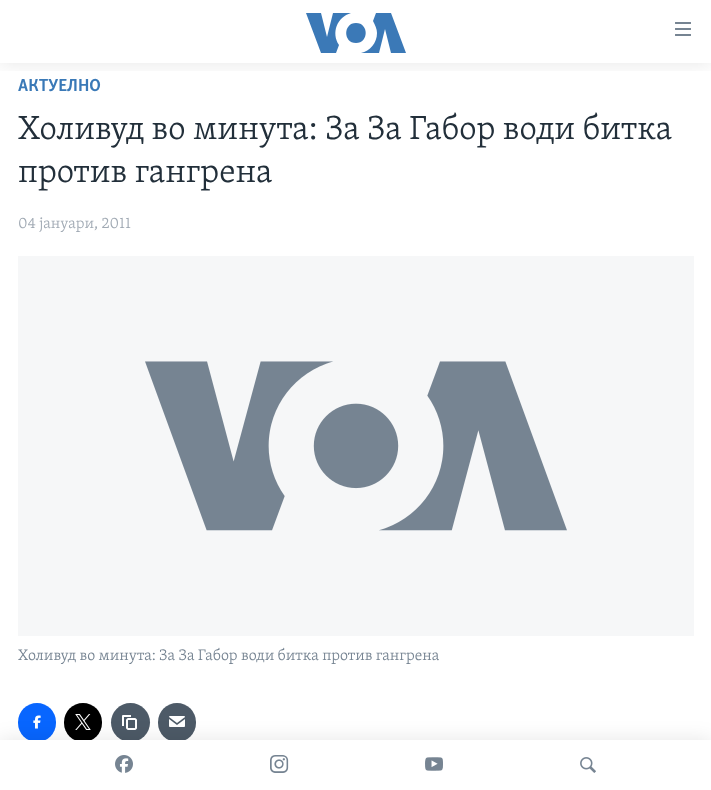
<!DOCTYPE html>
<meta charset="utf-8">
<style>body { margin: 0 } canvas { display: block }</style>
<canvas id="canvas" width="711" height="790"></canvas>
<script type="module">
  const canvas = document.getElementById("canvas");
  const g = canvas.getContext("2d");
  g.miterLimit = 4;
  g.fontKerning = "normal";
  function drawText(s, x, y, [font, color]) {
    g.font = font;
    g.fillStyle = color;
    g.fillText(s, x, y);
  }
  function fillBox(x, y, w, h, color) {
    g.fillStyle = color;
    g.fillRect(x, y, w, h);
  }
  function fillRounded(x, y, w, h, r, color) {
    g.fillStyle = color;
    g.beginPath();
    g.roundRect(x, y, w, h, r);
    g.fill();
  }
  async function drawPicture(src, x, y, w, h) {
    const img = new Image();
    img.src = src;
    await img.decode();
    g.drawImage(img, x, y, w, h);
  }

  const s1 = ["bold 18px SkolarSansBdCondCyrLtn", "#3A79B7"];
  const s2 = ["300 34.25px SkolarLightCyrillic", "#222F3A"];
  const s3 = ["300 15.75px SkolarLightCyrillic", "#A1AAB4"];
  const s4 = ["300 15.75px SkolarLightCyrillic", "#768492"];

  fillBox(0, 0, 711, 790, "#FFFFFF");
  g.save();
  g.beginPath();
  g.rect(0, 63, 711, 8);
  g.clip();
  g.fillStyle = "rgba(0, 0, 0, 0.1)";
  g.filter = "blur(10px)";
  g.beginPath();
  g.rect(0, 0, 711, 63);
  g.fill();
  g.filter = "none";
  g.restore();
  g.fillStyle = "#3B79B7";
  g.beginPath();
  g.moveTo(339, 45);
  g.lineTo(336, 53);
  g.lineTo(321, 53);
  g.lineTo(306, 13);
  g.lineTo(321, 13);
  g.lineTo(327, 37);
  g.lineTo(333, 13);
  g.lineTo(351, 13);
  g.bezierCurveTo(337, 17, 331, 33, 339, 45);
  g.closePath();
  g.moveTo(356, 23);
  g.bezierCurveTo(343, 23, 343, 43, 356, 43);
  g.bezierCurveTo(369, 43, 369, 23, 356, 23);
  g.closePath();
  g.moveTo(377, 33);
  g.bezierCurveTo(377, 43, 370, 51, 361, 53);
  g.lineTo(379, 53);
  g.lineTo(385, 29);
  g.lineTo(391, 53);
  g.lineTo(406, 53);
  g.lineTo(391, 13);
  g.lineTo(376, 13);
  g.lineTo(373, 21);
  g.bezierCurveTo(375, 25, 377, 29, 377, 33);
  g.closePath();
  g.fill();
  await drawPicture("pic1.png", 675, 22, 16, 14);
  fillRounded(18, 703, 38, 39, 19, "#0866FF");
  await drawPicture("pic7.png", 33, 715, 8, 14);
  fillRounded(64, 703, 38, 39, 19, "#000000");
  await drawPicture("pic8.png", 75, 714, 16, 16);
  g.fillStyle = "#4D5A67";
  g.beginPath();
  g.arc(130.5, 722.5, 19.5, 0, Math.PI * 2);
  g.fill();
  await drawPicture("pic9.png", 122, 715, 15, 15);
  fillRounded(158, 703, 38, 39, 19, "#4D5A67");
  await drawPicture("pic10.png", 169, 716, 16, 11);
  g.fillStyle = "rgba(0, 0, 0, 0.1)";
  g.filter = "blur(10px)";
  g.beginPath();
  g.rect(0, 740, 711, 50);
  g.fill();
  g.filter = "none";
  fillBox(0, 740, 711, 50, "#FFFFFF");
  await drawPicture("pic2.png", 115, 755, 18, 18);
  await drawPicture("pic3.png", 270, 755, 19, 18);
  await drawPicture("pic4.png", 425, 757, 18, 14);
  await drawPicture("pic5.png", 580, 757, 16, 16);
  drawText("АКТУЕЛНО", 18, 91, s1);
  drawText("Холивуд во минута: За За Габор води битка", 18, 139, s2);
  drawText("против гангрена", 18, 182, s2);
  drawText("04 јануари, 2011", 18, 228, s3);
  fillBox(18, 256, 676, 380, "#F6F7F8");
  await drawPicture("pic6.png", 145, 361, 422, 170);
  drawText("Холивуд во минута: За За Габор води битка против гангрена", 18, 660, s4);
</script>
